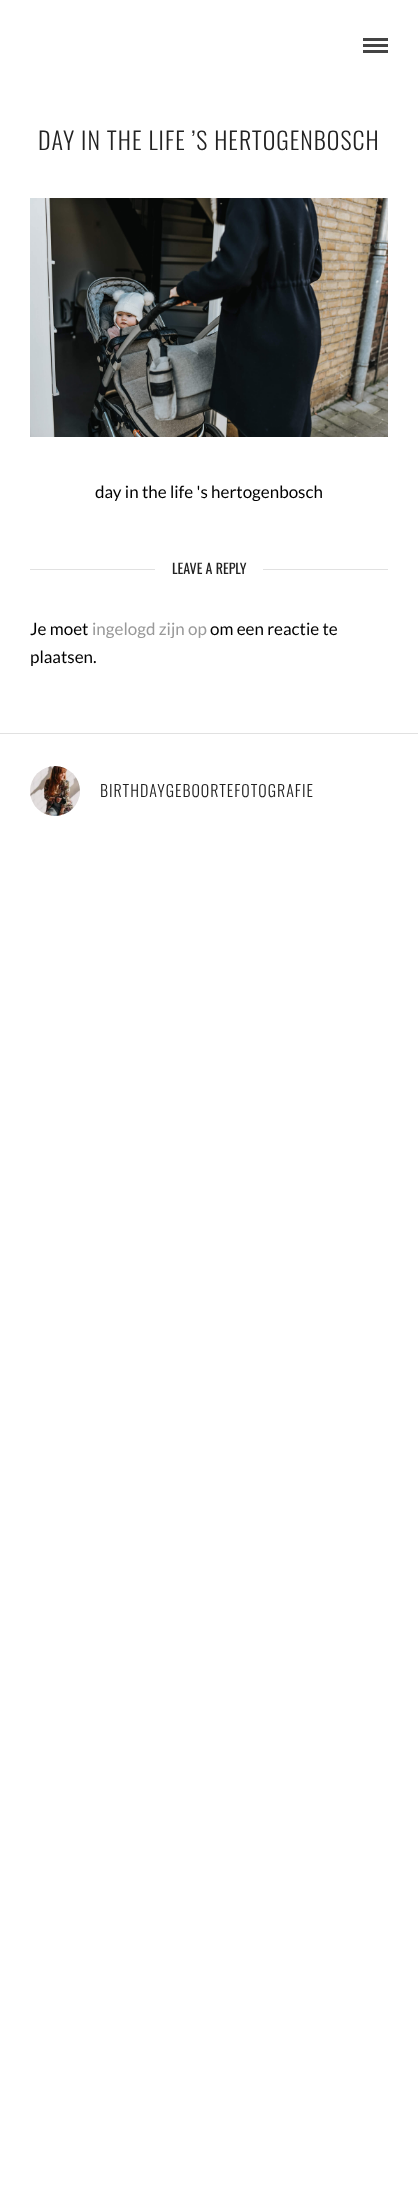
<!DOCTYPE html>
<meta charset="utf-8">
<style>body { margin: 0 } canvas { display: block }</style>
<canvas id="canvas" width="418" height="2193"></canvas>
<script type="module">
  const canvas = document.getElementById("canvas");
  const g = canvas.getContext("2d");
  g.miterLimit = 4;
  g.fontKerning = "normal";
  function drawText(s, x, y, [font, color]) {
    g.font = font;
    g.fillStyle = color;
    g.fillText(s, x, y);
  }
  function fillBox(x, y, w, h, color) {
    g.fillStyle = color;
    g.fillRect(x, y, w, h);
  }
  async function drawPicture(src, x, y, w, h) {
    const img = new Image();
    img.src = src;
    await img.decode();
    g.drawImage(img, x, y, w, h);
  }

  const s1 = ["300 24px Oswald", "#222222"];
  const s2 = ["17px Lato", "#000000"];
  const s3 = ["14px Oswald", "#222222"];
  const s4 = ["17px Lato", "#999999"];
  const s5 = ["300 16px Oswald", "#222222"];

  fillBox(0, 0, 418, 2193, "#FFFFFF");
  fillBox(363, 38, 25, 3, "#444444");
  fillBox(363, 44, 25, 3, "#444444");
  fillBox(363, 50, 25, 3, "#444444");
  g.letterSpacing = "1px";
  drawText("DAY IN THE LIFE ’S HERTOGENBOSCH", 38, 150, s1);
  await drawPicture("pic1.png", 30, 198, 358, 239);
  g.letterSpacing = "0px";
  drawText("day in the life 's hertogenbosch", 95, 498, s2);
  fillBox(30, 569, 358, 1, "#E1E1E1");
  fillBox(155, 569, 108, 1, "#FFFFFF");
  drawText("LEAVE A REPLY", 172, 574, s3);
  drawText("Je moet", 30, 635, s2);
  drawText("ingelogd zijn op", 92, 635, s4);
  drawText("om een reactie te", 210, 635, s2);
  drawText("plaatsen.", 30, 663, s2);
  fillBox(0, 733, 418, 1, "#E1E1E1");
  await drawPicture("pic2.png", 30, 766, 50, 50);
  g.letterSpacing = "1px";
  drawText("BIRTHDAYGEBOORTEFOTOGRAFIE", 100, 797, s5);
</script>
